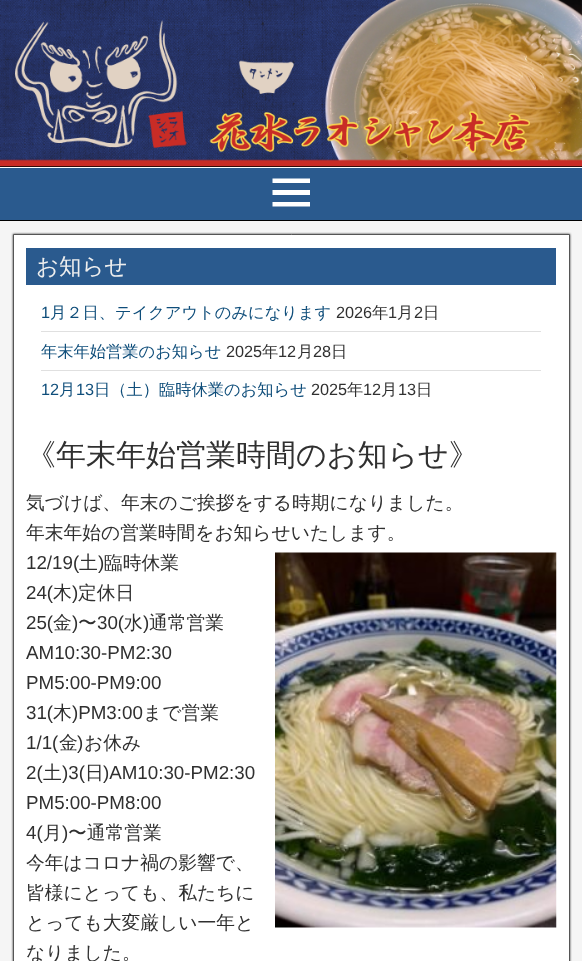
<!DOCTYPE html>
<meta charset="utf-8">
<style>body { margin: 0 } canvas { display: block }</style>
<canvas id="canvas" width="582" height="961"></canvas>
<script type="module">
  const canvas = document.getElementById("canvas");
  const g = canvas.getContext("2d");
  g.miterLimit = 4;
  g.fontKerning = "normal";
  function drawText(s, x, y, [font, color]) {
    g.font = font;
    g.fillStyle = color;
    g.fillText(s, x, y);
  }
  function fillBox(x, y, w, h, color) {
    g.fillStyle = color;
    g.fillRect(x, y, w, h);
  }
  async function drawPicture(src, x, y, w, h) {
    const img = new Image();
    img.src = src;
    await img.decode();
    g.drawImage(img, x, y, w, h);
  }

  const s1 = ["500 22.5px WenQuanYi Zen Hei", "#EEEEEE"];
  const s2 = ["16.25px Liberation Sans", "#0E4D7A"];
  const s3 = ["500 16.25px WenQuanYi Zen Hei", "#0E4D7A"];
  const s4 = ["16.25px Liberation Sans", "#303030"];
  const s5 = ["500 16.25px WenQuanYi Zen Hei", "#303030"];
  const s6 = ["500 30px WenQuanYi Zen Hei", "#303030"];
  const s7 = ["500 18.75px WenQuanYi Zen Hei", "#303030"];
  const s8 = ["18.75px Arimo", "#303030"];

  fillBox(0, 0, 582, 961, "#FFFFFF");
  fillBox(0, 166, 582, 1, "#000000");
  await drawPicture("pic1.png", 0, 0, 582, 167);
  fillBox(0, 168, 582, 52, "#2A5A8E");
  fillBox(0, 220, 582, 1, "#000000");
  g.fillStyle = "#FFFFFF";
  g.beginPath();
  g.moveTo(310, 178.5);
  g.lineTo(310, 183);
  g.lineTo(272.5, 183);
  g.lineTo(272.5, 178.5);
  g.closePath();
  g.moveTo(272.5, 190);
  g.lineTo(310, 190);
  g.lineTo(310, 195);
  g.lineTo(272.5, 195);
  g.closePath();
  g.moveTo(272.5, 202);
  g.lineTo(310, 202);
  g.lineTo(310, 206.5);
  g.lineTo(272.5, 206.5);
  g.closePath();
  g.fill();
  fillBox(0, 221, 582, 740, "#F5F5F5");
  g.fillStyle = "#333333";
  g.filter = "blur(1px)";
  g.beginPath();
  g.rect(13, 234, 557, 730);
  g.fill();
  g.filter = "none";
  g.fillStyle = "#FFFFFF";
  g.beginPath();
  g.rect(13.5, 234.5, 556, 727);
  g.fill();
  g.strokeStyle = "#555555";
  g.stroke();
  fillBox(26, 248, 530, 37, "#2A5A8E");
  drawText("お知らせ", 36, 274, s1);
  fillBox(41, 331, 500, 1, "#E0E0E0");
  drawText("1", 41, 318, s2);
  drawText("月２日、テイクアウトのみになります", 50, 318, s3);
  drawText("2026", 336, 318, s4);
  drawText("年", 372, 318, s5);
  drawText("1", 388, 318, s4);
  drawText("月", 397, 318, s5);
  drawText("2", 414, 318, s4);
  drawText("日", 423, 318, s5);
  fillBox(41, 370, 500, 1, "#E0E0E0");
  drawText("年末年始営業のお知らせ", 41, 357, s3);
  drawText("2025", 226, 357, s4);
  drawText("年", 262, 357, s5);
  drawText("12", 278, 357, s4);
  drawText("月", 297, 357, s5);
  drawText("28", 313, 357, s4);
  drawText("日", 331, 357, s5);
  drawText("12", 41, 395, s2);
  drawText("月", 59, 395, s3);
  drawText("13", 76, 395, s2);
  drawText("日（土）臨時休業のお知らせ", 94, 395, s3);
  drawText("2025", 311, 395, s4);
  drawText("年", 347, 395, s5);
  drawText("12", 363, 395, s4);
  drawText("月", 381, 395, s5);
  drawText("13", 398, 395, s4);
  drawText("日", 416, 395, s5);
  drawText("《年末年始営業時間のお知らせ》", 26, 465, s6);
  drawText("気づけば、年末のご挨拶をする時期になりました。", 26, 509, s7);
  drawText("年末年始の営業時間をお知らせいたします。", 26, 539, s7);
  drawText("12/19(", 26, 569, s8);
  drawText("土", 79, 569, s7);
  drawText(")", 98, 569, s8);
  drawText("臨時休業", 104, 569, s7);
  drawText("24(", 26, 599, s8);
  drawText("木", 53, 599, s7);
  drawText(")", 72, 599, s8);
  drawText("定休日", 78, 599, s7);
  drawText("25(", 26, 629, s8);
  drawText("金", 53, 629, s7);
  drawText(")", 72, 629, s8);
  drawText("〜", 78, 629, s7);
  drawText("30(", 97, 629, s8);
  drawText("水", 124, 629, s7);
  drawText(")", 143, 629, s8);
  drawText("通常営業", 149, 629, s7);
  drawText("AM10:30-PM2:30", 26, 659, s8);
  drawText("PM5:00-PM9:00", 26, 689, s8);
  drawText("31(", 26, 719, s8);
  drawText("木", 53, 719, s7);
  drawText(")PM3:00", 72, 719, s8);
  drawText("まで営業", 143, 719, s7);
  drawText("1/1(", 26, 749, s8);
  drawText("金", 59, 749, s7);
  drawText(")", 77, 749, s8);
  drawText("お休み", 84, 749, s7);
  drawText("2(", 26, 779, s8);
  drawText("土", 43, 779, s7);
  drawText(")3(", 62, 779, s8);
  drawText("日", 85, 779, s7);
  drawText(")AM10:30-PM2:30", 103, 779, s8);
  drawText("PM5:00-PM8:00", 26, 809, s8);
  drawText("4(", 26, 839, s8);
  drawText("月", 43, 839, s7);
  drawText(")", 62, 839, s8);
  drawText("〜通常営業", 68, 839, s7);
  await drawPicture("pic2.png", 275, 552, 282, 376);
  drawText("今年はコロナ禍の影響で、", 26, 869, s7);
  drawText("皆様にとっても、私たちに", 26, 899, s7);
  drawText("とっても大変厳しい一年と", 26, 929, s7);
  drawText("なりました。", 26, 959, s7);
</script>
